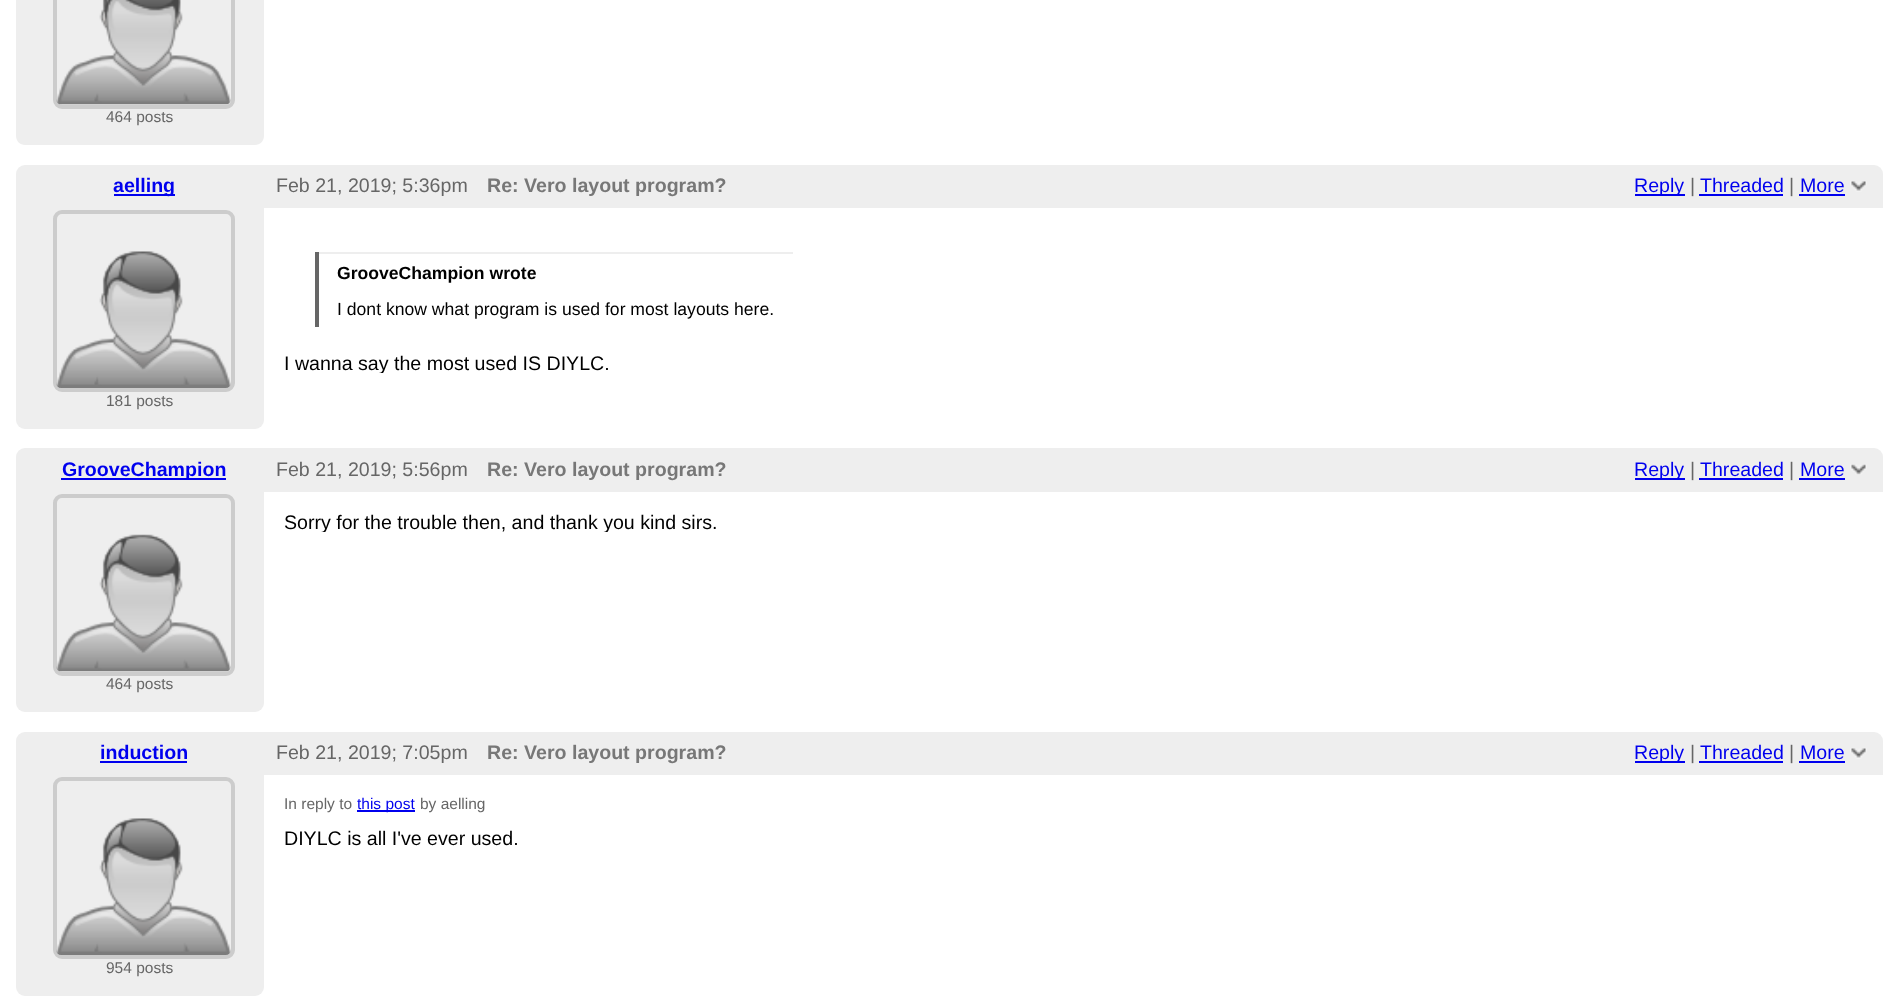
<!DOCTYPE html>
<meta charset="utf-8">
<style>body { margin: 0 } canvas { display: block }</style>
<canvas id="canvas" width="1898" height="1002"></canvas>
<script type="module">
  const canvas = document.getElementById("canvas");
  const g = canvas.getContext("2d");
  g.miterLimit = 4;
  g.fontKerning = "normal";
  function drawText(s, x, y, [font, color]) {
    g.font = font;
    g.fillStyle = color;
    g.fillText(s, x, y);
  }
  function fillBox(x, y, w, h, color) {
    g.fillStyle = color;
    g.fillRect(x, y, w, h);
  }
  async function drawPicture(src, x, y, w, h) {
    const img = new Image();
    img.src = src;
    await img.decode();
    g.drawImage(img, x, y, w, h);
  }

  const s1 = ["15.5px Liberation Sans", "#666666"];
  const s2 = ["bold 19.6px Liberation Sans", "#0000EE"];
  const s3 = ["19.6px Liberation Sans", "#666666"];
  const s4 = ["bold 19.6px Liberation Sans", "#777777"];
  const s5 = ["19.6px Liberation Sans", "#0000EE"];
  const s6 = ["bold 17.6px Liberation Sans", "#000000"];
  const s7 = ["17.6px Liberation Sans", "#000000"];
  const s8 = ["19.6px Liberation Sans", "#000000"];
  const s9 = ["15.5px Liberation Sans", "#0000EE"];

  fillBox(0, 0, 1898, 1002, "#FFFFFF");
  g.fillStyle = "#EEEEEE";
  g.beginPath();
  g.moveTo(16, -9);
  g.lineTo(264, -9);
  g.lineTo(264, 136);
  g.bezierCurveTo(264, 141, 260, 145, 255, 145);
  g.lineTo(25, 145);
  g.bezierCurveTo(20, 145, 16, 141, 16, 136);
  g.closePath();
  g.fill();
  g.beginPath();
  g.roundRect(55, -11, 178, 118, 7);
  g.strokeStyle = "#CCCCCC";
  g.lineWidth = 4;
  g.stroke();
  await drawPicture("pic1.png", 56, 0, 175, 105);
  drawText("464 posts", 106, 122, s1);
  g.fillStyle = "#EEEEEE";
  g.beginPath();
  g.roundRect(16, 165, 1867, 43, [9, 9, 0, 0]);
  g.fill();
  fillBox(114, 194, 61, 2, "#0000EE");
  drawText("aelling", 113, 192, s2);
  drawText("Feb 21, 2019; 5:36pm", 276, 192, s3);
  drawText("Re: Vero layout program?", 487, 192, s4);
  fillBox(1635, 194, 50, 2, "#0000EE");
  drawText("Reply", 1634, 192, s5);
  drawText("|", 1690, 192, s3);
  drawText("Threaded", 1700, 192, s5);
  fillBox(1699, 194, 84, 2, "#0000EE");
  drawText("|", 1789, 192, s3);
  drawText("More", 1800, 192, s5);
  fillBox(1799, 194, 46, 2, "#0000EE");
  await drawPicture("pic2.png", 1850, 181, 17, 11);
  fillBox(315, 252, 4, 75, "#666666");
  fillBox(319, 252, 474, 2, "#EEEEEE");
  drawText("GrooveChampion wrote", 337, 279, s6);
  drawText("I dont know what program is used for most layouts here.", 337, 315, s7);
  g.save();
  g.beginPath();
  g.rect(284, 228, 1580, 145);
  g.clip();
  drawText("I wanna say the most used IS DIYLC.", 284, 370, s8);
  g.restore();
  g.fillStyle = "#EEEEEE";
  g.beginPath();
  g.roundRect(16, 208, 248, 221, [0, 0, 9, 9]);
  g.fill();
  g.beginPath();
  g.roundRect(55, 212, 178, 178, 7);
  g.stroke();
  await drawPicture("pic3.png", 56, 251, 175, 137);
  drawText("181 posts", 106, 406, s1);
  g.fillStyle = "#EEEEEE";
  g.beginPath();
  g.roundRect(16, 448, 1867, 44, [9, 9, 0, 0]);
  g.fill();
  fillBox(61, 478, 165, 2, "#0000EE");
  drawText("GrooveChampion", 62, 476, s2);
  drawText("Feb 21, 2019; 5:56pm", 276, 476, s3);
  drawText("Re: Vero layout program?", 487, 476, s4);
  fillBox(1635, 478, 50, 2, "#0000EE");
  drawText("Reply", 1634, 476, s5);
  drawText("|", 1690, 476, s3);
  drawText("Threaded", 1700, 476, s5);
  fillBox(1699, 478, 84, 2, "#0000EE");
  drawText("|", 1789, 476, s3);
  drawText("More", 1800, 476, s5);
  fillBox(1799, 478, 46, 2, "#0000EE");
  await drawPicture("pic4.png", 1850, 464, 17, 11);
  g.save();
  g.beginPath();
  g.rect(284, 511, 1580, 21);
  g.clip();
  drawText("Sorry for the trouble then, and thank you kind sirs.", 284, 529, s8);
  g.restore();
  g.fillStyle = "#EEEEEE";
  g.beginPath();
  g.roundRect(16, 492, 248, 220, [0, 0, 9, 9]);
  g.fill();
  g.beginPath();
  g.roundRect(55, 496, 178, 178, 7);
  g.stroke();
  await drawPicture("pic5.png", 56, 534, 175, 138);
  drawText("464 posts", 106, 689, s1);
  g.fillStyle = "#EEEEEE";
  g.beginPath();
  g.roundRect(16, 732, 1867, 43, [9, 9, 0, 0]);
  g.fill();
  drawText("induction", 100, 759, s2);
  fillBox(100, 761, 87, 2, "#0000EE");
  drawText("Feb 21, 2019; 7:05pm", 276, 759, s3);
  drawText("Re: Vero layout program?", 487, 759, s4);
  fillBox(1635, 761, 50, 2, "#0000EE");
  drawText("Reply", 1634, 759, s5);
  drawText("|", 1690, 759, s3);
  drawText("Threaded", 1700, 759, s5);
  fillBox(1699, 761, 84, 2, "#0000EE");
  drawText("|", 1789, 759, s3);
  drawText("More", 1800, 759, s5);
  fillBox(1799, 761, 46, 2, "#0000EE");
  await drawPicture("pic2.png", 1850, 748, 17, 11);
  drawText("In reply to", 284, 809, s1);
  fillBox(357, 810, 58, 2, "#0000EE");
  drawText("this post", 357, 809, s9);
  drawText("by aelling", 420, 809, s1);
  drawText("DIYLC is all I've ever used.", 284, 845, s8);
  g.fillStyle = "#EEEEEE";
  g.beginPath();
  g.roundRect(16, 775, 248, 221, [0, 0, 9, 9]);
  g.fill();
  g.beginPath();
  g.roundRect(55, 779, 178, 178, 7);
  g.stroke();
  await drawPicture("pic6.png", 56, 818, 175, 137);
  drawText("954 posts", 106, 973, s1);
</script>
